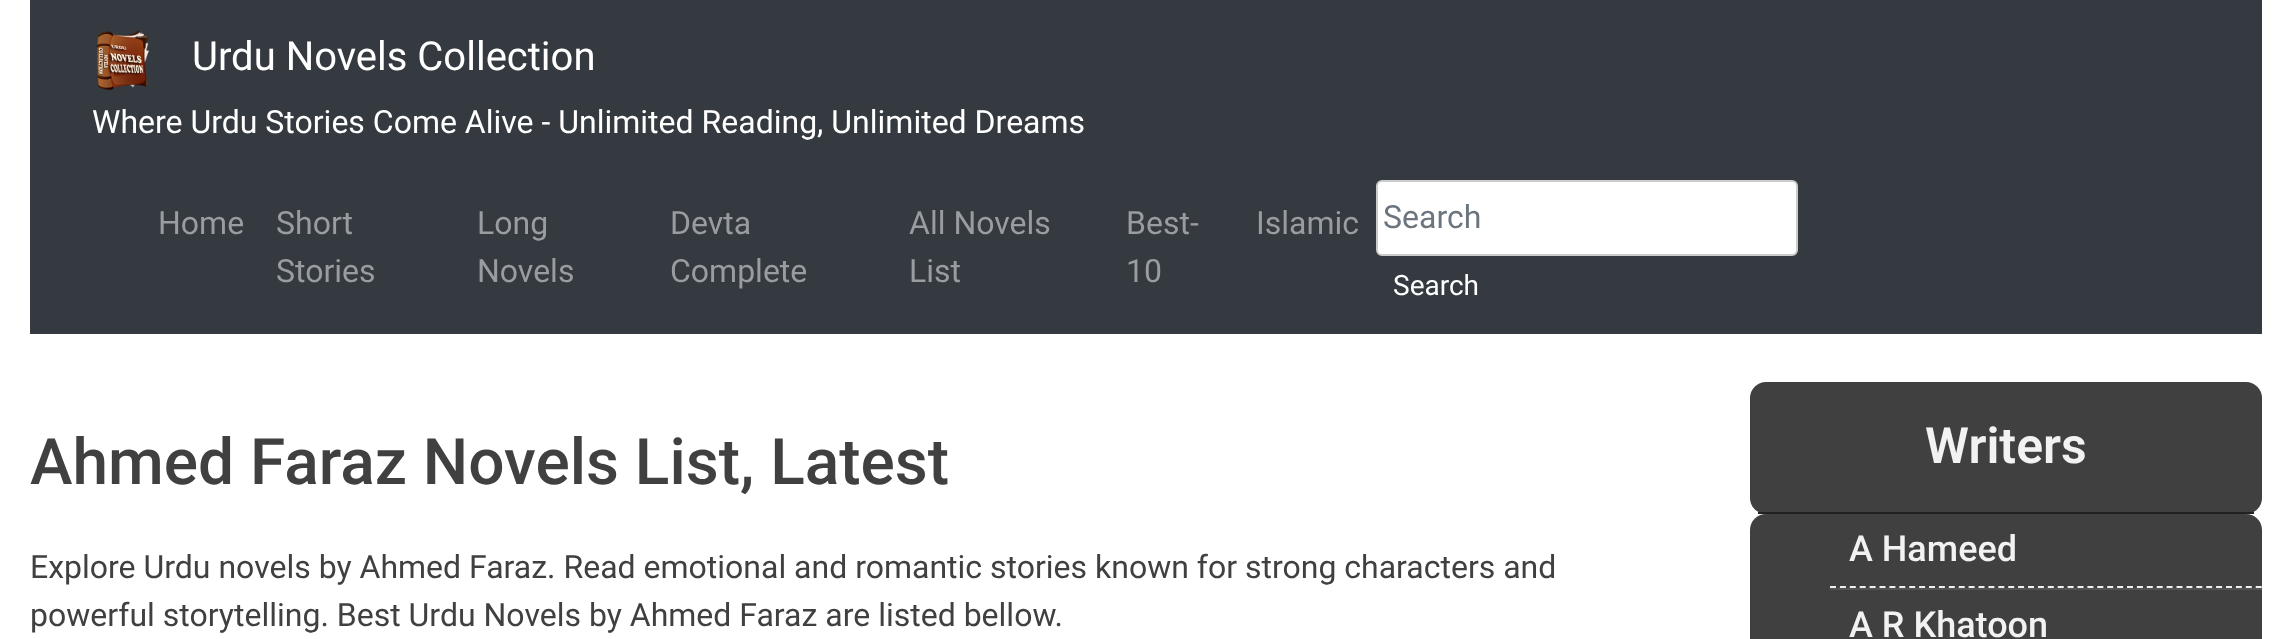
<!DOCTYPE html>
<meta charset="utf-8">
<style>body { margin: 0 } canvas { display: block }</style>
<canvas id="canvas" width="2292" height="639"></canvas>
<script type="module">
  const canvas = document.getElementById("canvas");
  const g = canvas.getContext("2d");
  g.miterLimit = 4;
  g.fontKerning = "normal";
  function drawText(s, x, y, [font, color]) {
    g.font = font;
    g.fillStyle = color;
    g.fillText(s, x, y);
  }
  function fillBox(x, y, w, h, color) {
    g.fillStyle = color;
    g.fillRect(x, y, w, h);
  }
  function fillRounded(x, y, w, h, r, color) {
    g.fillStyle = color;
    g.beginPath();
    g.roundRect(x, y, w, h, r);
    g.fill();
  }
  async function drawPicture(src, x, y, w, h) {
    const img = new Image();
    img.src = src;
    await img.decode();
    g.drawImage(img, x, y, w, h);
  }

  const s1 = ["40px Roboto", "#FFFFFF"];
  const s2 = ["32px Roboto", "#FFFFFF"];
  const s3 = ["32px Roboto", "#9A9DA0"];
  const s4 = ["32px Roboto", "#6C757D"];
  const s5 = ["28px Roboto", "#FFFFFF"];
  const s6 = ["500 64px Roboto", "#404040"];
  const s7 = ["32px Roboto", "#404040"];
  const s8 = ["600 50px Roboto", "#F2F2F2"];
  const s9 = ["500 36px Roboto", "#F2F2F2"];

  fillBox(0, 0, 2292, 639, "#FFFFFF");
  fillBox(30, 0, 2232, 334, "#343A40");
  await drawPicture("pic1.png", 96, 30, 54, 60);
  drawText("Urdu Novels Collection", 192, 70, s1);
  drawText("Where Urdu Stories Come Alive - Unlimited Reading, Unlimited Dreams", 92, 133, s2);
  drawText("Home", 158, 234, s3);
  drawText("Short", 276, 234, s3);
  drawText("Stories", 276, 282, s3);
  drawText("Long", 477, 234, s3);
  drawText("Novels", 477, 282, s3);
  drawText("Devta", 670, 234, s3);
  drawText("Complete", 670, 282, s3);
  drawText("All Novels", 909, 234, s3);
  drawText("List", 909, 282, s3);
  drawText("Best-", 1126, 234, s3);
  drawText("10", 1126, 282, s3);
  drawText("Islamic", 1256, 234, s3);
  g.fillStyle = "#FFFFFF";
  g.beginPath();
  g.roundRect(1377, 181, 420, 74, 5);
  g.fill();
  g.strokeStyle = "#CCCCCC";
  g.lineWidth = 2;
  g.stroke();
  drawText("Search", 1383, 228, s4);
  drawText("Search", 1393, 295, s5);
  drawText("Ahmed Faraz Novels List, Latest", 30, 484, s6);
  drawText("Explore Urdu novels by Ahmed Faraz. Read emotional and romantic stories known for strong characters and", 30, 578, s7);
  drawText("powerful storytelling. Best Urdu Novels by Ahmed Faraz are listed bellow.", 30, 626, s7);
  fillRounded(1750, 382, 512, 132, 16, "#404040");
  fillBox(1758, 512, 496, 2, "#222222");
  drawText("Writers", 1925, 463, s8);
  g.fillStyle = "#404040";
  g.beginPath();
  g.moveTo(1766, 514);
  g.lineTo(2246, 514);
  g.bezierCurveTo(2255, 514, 2262, 521, 2262, 530);
  g.lineTo(2262, 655);
  g.lineTo(1750, 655);
  g.lineTo(1750, 530);
  g.bezierCurveTo(1750, 521, 1757, 514, 1766, 514);
  g.closePath();
  g.fill();
  g.beginPath();
  g.moveTo(1830, 587);
  g.lineTo(2262, 587);
  g.strokeStyle = "#F0F0F0";
  g.setLineDash([6, 3.9]);
  g.stroke();
  drawText("A Hameed", 1849, 561, s9);
  fillBox(1830, 588, 432, 2, "#535353");
  drawText("A R Khatoon", 1849, 637, s9);
</script>
